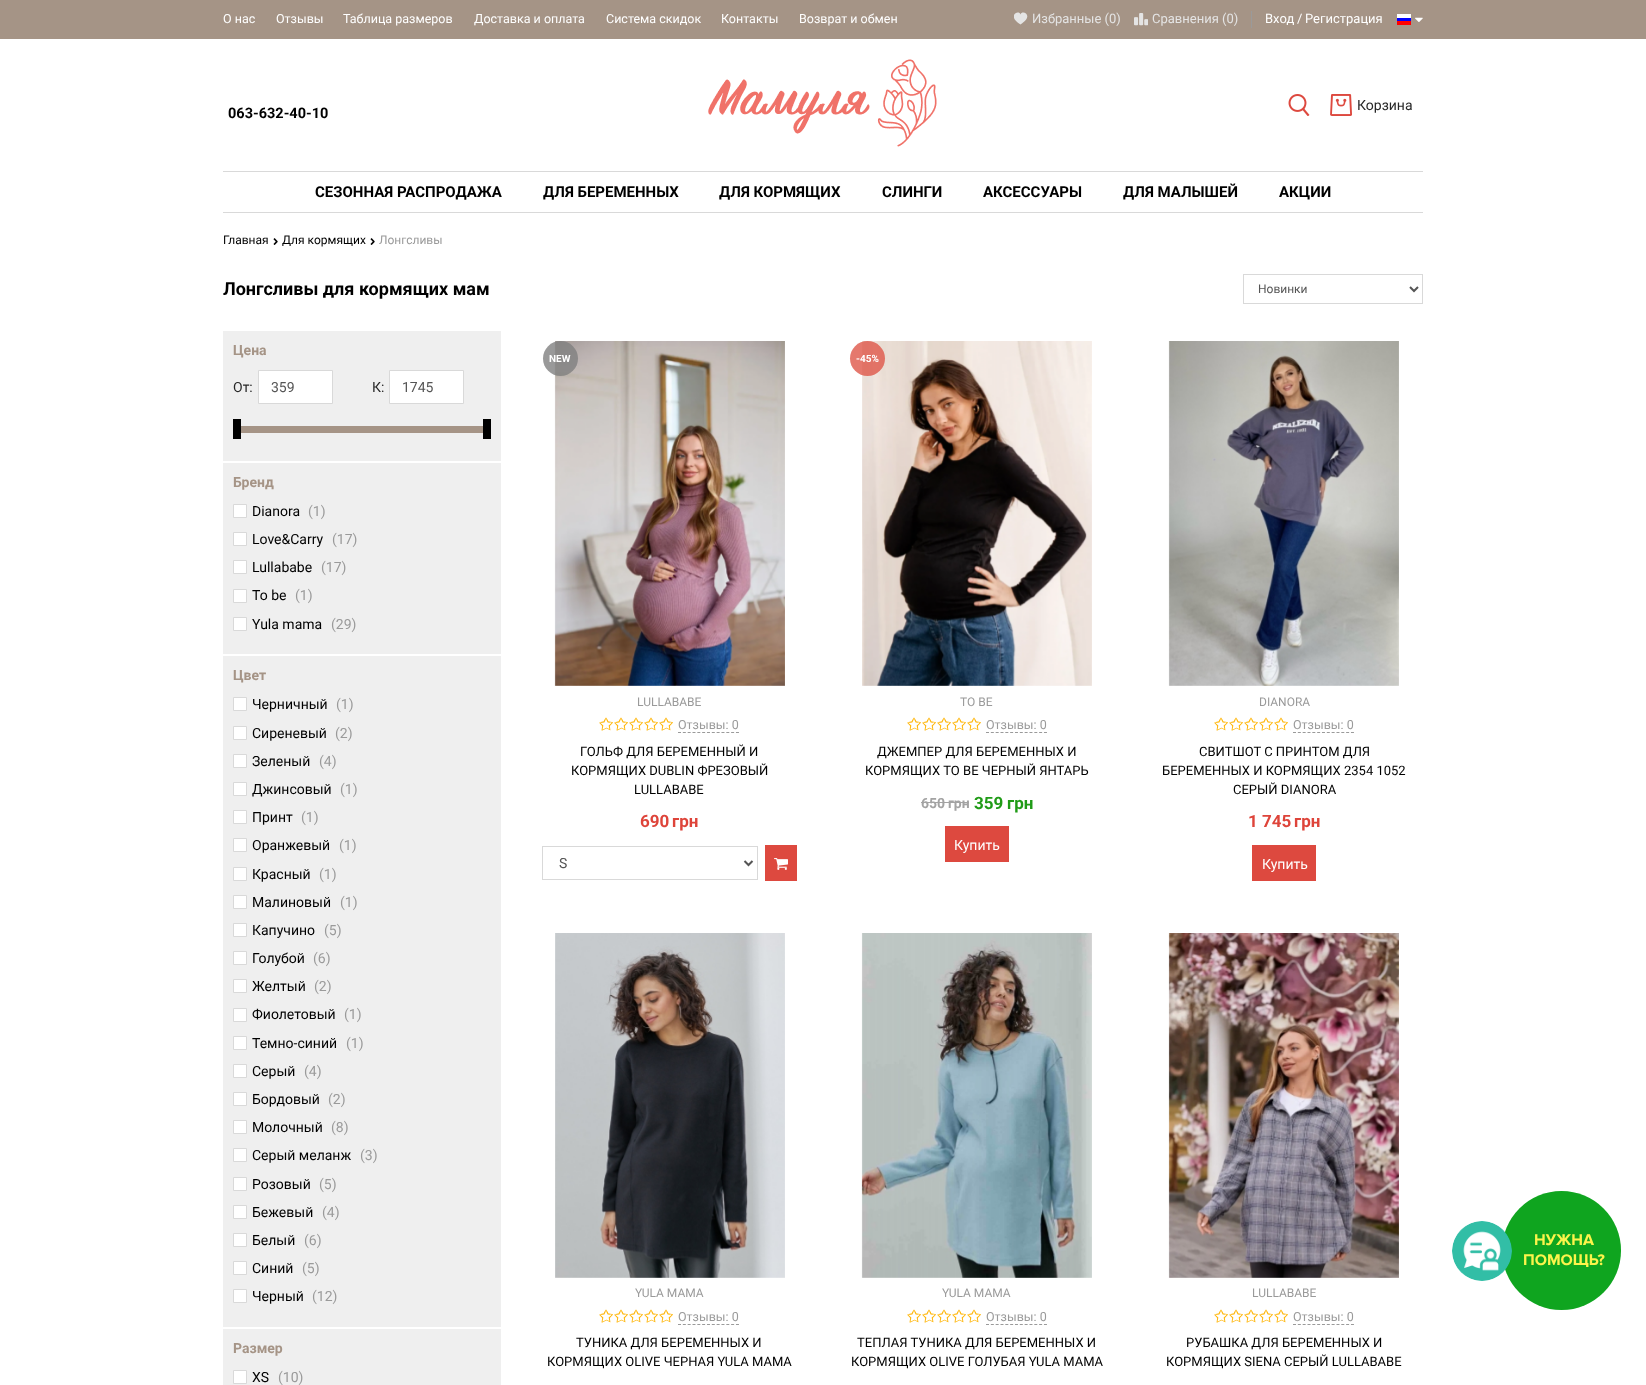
<!DOCTYPE html>
<meta charset="utf-8">
<style>body { margin: 0 } canvas { display: block }</style>
<canvas id="canvas" width="1646" height="1385"></canvas>
<script type="module">
  const canvas = document.getElementById("canvas");
  const g = canvas.getContext("2d");
  g.miterLimit = 4;
  g.fontKerning = "normal";
  function drawText(s, x, y, [font, color]) {
    g.font = font;
    g.fillStyle = color;
    g.fillText(s, x, y);
  }
  function fillBox(x, y, w, h, color) {
    g.fillStyle = color;
    g.fillRect(x, y, w, h);
  }
  async function drawPicture(src, x, y, w, h) {
    const img = new Image();
    img.src = src;
    await img.decode();
    g.drawImage(img, x, y, w, h);
  }

  const s1 = ["12.5px Roboto", "#FFFFFF"];
  const s2 = ["13px Roboto", "#E4E4E4"];
  const s3 = ["13px Roboto", "#FFFFFF"];
  const s4 = ["bold 14.5px Roboto", "#000000"];
  const s5 = ["14px Roboto", "#272727"];
  const s6 = ["bold 15px Roboto", "#000000"];
  const s7 = ["12px Roboto", "#000000"];
  const s8 = ["12px Roboto", "#9A9A9A"];
  const s9 = ["bold 18px Roboto", "#000000"];
  const s10 = ["12px Roboto", "#555555"];
  const s11 = ["bold 14px Roboto", "#A59486"];
  const s12 = ["14px Roboto", "#555555"];
  const s13 = ["14px Roboto", "#000000"];
  const s14 = ["14px Roboto", "#9A9A9A"];
  const s15 = ["bold 10px Roboto", "#FFFFFF"];
  const s16 = ["12.5px Roboto", "#9A9A9A"];
  const s17 = ["13px Roboto", "#000000"];
  const s18 = ["bold 17px Roboto", "#DE443A"];
  const s19 = ["bold 14px Roboto", "#A3A3A3"];
  const s20 = ["bold 17px Roboto", "#209B17"];
  const s21 = ["14px Roboto", "#FFFFFF"];
  const s22 = ["bold 16px Proxima Nova", "#FCF44B"];

  fillBox(0, 0, 1646, 1385, "#FFFFFF");
  fillBox(0, 0, 1646, 39, "#A59486");
  drawText("О нас", 223, 23, s1);
  drawText("Отзывы", 276, 23, s1);
  drawText("Таблица размеров", 343, 23, s1);
  drawText("Доставка и оплата", 474, 23, s1);
  drawText("Система скидок", 606, 23, s1);
  drawText("Контакты", 721, 23, s1);
  drawText("Возврат и обмен", 799, 23, s1);
  g.save();
  g.beginPath();
  g.rect(1014, 12, 14, 14);
  g.clip();
  g.fillStyle = "#E4E4E4";
  g.beginPath();
  g.moveTo(1020.5, 24.5);
  g.bezierCurveTo(1006, 15.5, 1019, 9, 1020.5, 14.5);
  g.bezierCurveTo(1022, 9, 1035, 15.5, 1020.5, 24.5);
  g.closePath();
  g.fill();
  g.restore();
  drawText("Избранные (0)", 1032, 23, s2);
  await drawPicture("pic1.png", 1134, 13, 14, 13);
  drawText("Сравнения (0)", 1152, 23, s2);
  fillBox(1251, 11, 1, 17, "#9A9A9A");
  drawText("Вход", 1265, 23, s3);
  drawText("/", 1297, 23, s3);
  drawText("Регистрация", 1305, 23, s3);
  await drawPicture("pic2.png", 1397, 14, 14, 11);
  await drawPicture("pic3.png", 1415, 17, 8, 5);
  fillBox(223, 171, 1200, 1, "#D9D9D9");
  drawText("063-632-40-10", 228, 118, s4);
  await drawPicture("pic4.png", 708, 59, 229, 88);
  await drawPicture("pic5.png", 1288, 94, 22, 22);
  await drawPicture("pic6.png", 1330, 94, 22, 22);
  drawText("Корзина", 1357, 110, s5);
  fillBox(223, 212, 1200, 1, "#D9D9D9");
  drawText("СЕЗОННАЯ РАСПРОДАЖА", 315, 197, s6);
  drawText("ДЛЯ БЕРЕМЕННЫХ", 543, 197, s6);
  drawText("ДЛЯ КОРМЯЩИХ", 719, 197, s6);
  drawText("СЛИНГИ", 882, 197, s6);
  drawText("АКСЕССУАРЫ", 983, 197, s6);
  drawText("ДЛЯ МАЛЫШЕЙ", 1123, 197, s6);
  drawText("АКЦИИ", 1279, 197, s6);
  drawText("Главная", 223, 244, s7);
  await drawPicture("pic7.png", 273, 238, 5, 7);
  drawText("Для кормящих", 282, 244, s7);
  await drawPicture("pic7.png", 370, 238, 5, 7);
  drawText("Лонгсливы", 379, 244, s8);
  drawText("Лонгсливы для кормящих мам", 223, 295, s9);
  g.strokeStyle = "#D9D9D9";
  g.strokeRect(1243.5, 274.5, 179, 29);
  g.beginPath();
  g.moveTo(1410, 287);
  g.lineTo(1414, 291);
  g.lineTo(1418, 287);
  g.strokeStyle = "#555555";
  g.lineWidth = 2;
  g.stroke();
  drawText("Новинки", 1258, 293, s10);
  fillBox(223, 331, 278, 130, "#EFEFEF");
  drawText("Цена", 233, 355, s11);
  drawText("От:", 233, 392, s5);
  g.fillStyle = "#FFFFFF";
  g.beginPath();
  g.rect(258.5, 370.5, 74, 33);
  g.fill();
  g.strokeStyle = "#D9D9D9";
  g.lineWidth = 1;
  g.stroke();
  drawText("359", 271, 392, s12);
  drawText("К:", 372, 392, s5);
  g.fillStyle = "#FFFFFF";
  g.beginPath();
  g.rect(389.5, 370.5, 74, 33);
  g.fill();
  g.stroke();
  drawText("1745", 402, 392, s12);
  fillBox(233, 426, 258, 7, "#A59486");
  fillBox(233, 419, 8, 20, "#000000");
  fillBox(483, 419, 8, 20, "#000000");
  fillBox(223, 463, 278, 191, "#EFEFEF");
  drawText("Бренд", 233, 487, s11);
  g.fillStyle = "#FFFFFF";
  g.beginPath();
  g.rect(233.5, 504.5, 13, 13);
  g.fill();
  g.stroke();
  drawText("Dianora", 252, 516, s13);
  drawText("(1)", 308, 516, s14);
  g.fillStyle = "#FFFFFF";
  g.beginPath();
  g.rect(233.5, 532.5, 13, 13);
  g.fill();
  g.stroke();
  drawText("Love&Carry", 252, 544, s13);
  drawText("(17)", 332, 544, s14);
  g.fillStyle = "#FFFFFF";
  g.beginPath();
  g.rect(233.5, 560.5, 13, 13);
  g.fill();
  g.stroke();
  drawText("Lullababe", 252, 572, s13);
  drawText("(17)", 321, 572, s14);
  g.fillStyle = "#FFFFFF";
  g.beginPath();
  g.rect(233.5, 589.5, 13, 13);
  g.fill();
  g.stroke();
  drawText("To be", 252, 600, s13);
  drawText("(1)", 295, 600, s14);
  g.fillStyle = "#FFFFFF";
  g.beginPath();
  g.rect(233.5, 617.5, 13, 13);
  g.fill();
  g.stroke();
  drawText("Yula mama", 252, 629, s13);
  drawText("(29)", 331, 629, s14);
  fillBox(223, 656, 278, 671, "#EFEFEF");
  drawText("Цвет", 233, 680, s11);
  g.fillStyle = "#FFFFFF";
  g.beginPath();
  g.rect(233.5, 697.5, 13, 13);
  g.fill();
  g.stroke();
  drawText("Черничный", 252, 709, s13);
  drawText("(1)", 336, 709, s14);
  g.fillStyle = "#FFFFFF";
  g.beginPath();
  g.rect(233.5, 726.5, 13, 13);
  g.fill();
  g.stroke();
  drawText("Сиреневый", 252, 738, s13);
  drawText("(2)", 335, 738, s14);
  g.fillStyle = "#FFFFFF";
  g.beginPath();
  g.rect(233.5, 754.5, 13, 13);
  g.fill();
  g.stroke();
  drawText("Зеленый", 252, 766, s13);
  drawText("(4)", 319, 766, s14);
  g.fillStyle = "#FFFFFF";
  g.beginPath();
  g.rect(233.5, 782.5, 13, 13);
  g.fill();
  g.stroke();
  drawText("Джинсовый", 252, 794, s13);
  drawText("(1)", 340, 794, s14);
  g.fillStyle = "#FFFFFF";
  g.beginPath();
  g.rect(233.5, 810.5, 13, 13);
  g.fill();
  g.stroke();
  drawText("Принт", 252, 822, s13);
  drawText("(1)", 301, 822, s14);
  g.fillStyle = "#FFFFFF";
  g.beginPath();
  g.rect(233.5, 838.5, 13, 13);
  g.fill();
  g.stroke();
  drawText("Оранжевый", 252, 850, s13);
  drawText("(1)", 339, 850, s14);
  g.fillStyle = "#FFFFFF";
  g.beginPath();
  g.rect(233.5, 867.5, 13, 13);
  g.fill();
  g.stroke();
  drawText("Красный", 252, 879, s13);
  drawText("(1)", 319, 879, s14);
  g.fillStyle = "#FFFFFF";
  g.beginPath();
  g.rect(233.5, 895.5, 13, 13);
  g.fill();
  g.stroke();
  drawText("Малиновый", 252, 907, s13);
  drawText("(1)", 340, 907, s14);
  g.fillStyle = "#FFFFFF";
  g.beginPath();
  g.rect(233.5, 923.5, 13, 13);
  g.fill();
  g.stroke();
  drawText("Капучино", 252, 935, s13);
  drawText("(5)", 324, 935, s14);
  g.fillStyle = "#FFFFFF";
  g.beginPath();
  g.rect(233.5, 951.5, 13, 13);
  g.fill();
  g.stroke();
  drawText("Голубой", 252, 963, s13);
  drawText("(6)", 313, 963, s14);
  g.fillStyle = "#FFFFFF";
  g.beginPath();
  g.rect(233.5, 979.5, 13, 13);
  g.fill();
  g.stroke();
  drawText("Желтый", 252, 991, s13);
  drawText("(2)", 314, 991, s14);
  g.fillStyle = "#FFFFFF";
  g.beginPath();
  g.rect(233.5, 1008.5, 13, 13);
  g.fill();
  g.stroke();
  drawText("Фиолетовый", 252, 1019, s13);
  drawText("(1)", 344, 1019, s14);
  g.fillStyle = "#FFFFFF";
  g.beginPath();
  g.rect(233.5, 1036.5, 13, 13);
  g.fill();
  g.stroke();
  drawText("Темно-синий", 252, 1048, s13);
  drawText("(1)", 346, 1048, s14);
  g.fillStyle = "#FFFFFF";
  g.beginPath();
  g.rect(233.5, 1064.5, 13, 13);
  g.fill();
  g.stroke();
  drawText("Серый", 252, 1076, s13);
  drawText("(4)", 304, 1076, s14);
  g.fillStyle = "#FFFFFF";
  g.beginPath();
  g.rect(233.5, 1092.5, 13, 13);
  g.fill();
  g.stroke();
  drawText("Бордовый", 252, 1104, s13);
  drawText("(2)", 328, 1104, s14);
  g.fillStyle = "#FFFFFF";
  g.beginPath();
  g.rect(233.5, 1120.5, 13, 13);
  g.fill();
  g.stroke();
  drawText("Молочный", 252, 1132, s13);
  drawText("(8)", 331, 1132, s14);
  g.fillStyle = "#FFFFFF";
  g.beginPath();
  g.rect(233.5, 1148.5, 13, 13);
  g.fill();
  g.stroke();
  drawText("Серый меланж", 252, 1160, s13);
  drawText("(3)", 360, 1160, s14);
  g.fillStyle = "#FFFFFF";
  g.beginPath();
  g.rect(233.5, 1177.5, 13, 13);
  g.fill();
  g.stroke();
  drawText("Розовый", 252, 1189, s13);
  drawText("(5)", 319, 1189, s14);
  g.fillStyle = "#FFFFFF";
  g.beginPath();
  g.rect(233.5, 1205.5, 13, 13);
  g.fill();
  g.stroke();
  drawText("Бежевый", 252, 1217, s13);
  drawText("(4)", 322, 1217, s14);
  g.fillStyle = "#FFFFFF";
  g.beginPath();
  g.rect(233.5, 1233.5, 13, 13);
  g.fill();
  g.stroke();
  drawText("Белый", 252, 1245, s13);
  drawText("(6)", 304, 1245, s14);
  g.fillStyle = "#FFFFFF";
  g.beginPath();
  g.rect(233.5, 1261.5, 13, 13);
  g.fill();
  g.stroke();
  drawText("Синий", 252, 1273, s13);
  drawText("(5)", 302, 1273, s14);
  g.fillStyle = "#FFFFFF";
  g.beginPath();
  g.rect(233.5, 1289.5, 13, 13);
  g.fill();
  g.stroke();
  drawText("Черный", 252, 1301, s13);
  drawText("(12)", 312, 1301, s14);
  fillBox(223, 1329, 278, 56, "#EFEFEF");
  drawText("Размер", 233, 1353, s11);
  g.fillStyle = "#FFFFFF";
  g.beginPath();
  g.rect(233.5, 1370.5, 13, 13);
  g.fill();
  g.stroke();
  drawText("XS", 252, 1382, s13);
  drawText("(10)", 278, 1382, s14);
  await drawPicture("pic8.png", 554, 341, 231, 345);
  g.fillStyle = "rgba(127, 127, 127, 0.8)";
  g.beginPath();
  g.arc(560.5, 358.5, 17.5, 0, Math.PI * 2);
  g.fill();
  drawText("NEW", 549, 362, s15);
  drawText("LULLABABE", 637, 706, s8);
  await drawPicture("pic9.png", 599, 717, 14, 14);
  await drawPicture("pic9.png", 614, 717, 14, 14);
  await drawPicture("pic9.png", 629, 717, 14, 14);
  await drawPicture("pic9.png", 644, 717, 14, 14);
  await drawPicture("pic9.png", 659, 717, 14, 14);
  drawText("Отзывы: 0", 678, 729, s16);
  g.beginPath();
  g.moveTo(678, 732.5);
  g.lineTo(739, 732.5);
  g.strokeStyle = "#9A9A9A";
  g.setLineDash([3, 1.83]);
  g.stroke();
  drawText("ГОЛЬФ ДЛЯ БЕРЕМЕННЫЙ И", 580, 756, s17);
  drawText("КОРМЯЩИХ DUBLIN ФРЕЗОВЫЙ", 571, 775, s17);
  drawText("LULLABABE", 634, 794, s17);
  drawText("690", 640, 827, s18);
  drawText("грн", 672, 827, s18);
  g.strokeStyle = "#D9D9D9";
  g.setLineDash([]);
  g.strokeRect(542.5, 846.5, 215, 33);
  g.beginPath();
  g.moveTo(744.5, 861);
  g.lineTo(748.5, 865);
  g.lineTo(752.5, 861);
  g.strokeStyle = "#555555";
  g.lineWidth = 2;
  g.stroke();
  drawText("S", 559, 868, s12);
  fillBox(765, 845, 32, 36, "#DD493F");
  await drawPicture("pic10.png", 774, 858, 14, 12);
  await drawPicture("pic11.png", 862, 341, 230, 345);
  g.fillStyle = "rgba(222, 86, 72, 0.8)";
  g.beginPath();
  g.arc(867.5, 358.5, 17.5, 0, Math.PI * 2);
  g.fill();
  drawText("-45%", 856, 362, s15);
  drawText("TO BE", 960, 706, s8);
  await drawPicture("pic9.png", 907, 717, 14, 14);
  await drawPicture("pic9.png", 922, 717, 14, 14);
  await drawPicture("pic9.png", 937, 717, 14, 14);
  await drawPicture("pic9.png", 952, 717, 14, 14);
  await drawPicture("pic9.png", 967, 717, 14, 14);
  drawText("Отзывы: 0", 986, 729, s16);
  g.beginPath();
  g.moveTo(986, 732.5);
  g.lineTo(1047, 732.5);
  g.strokeStyle = "#9A9A9A";
  g.lineWidth = 1;
  g.setLineDash([3, 1.83]);
  g.stroke();
  drawText("ДЖЕМПЕР ДЛЯ БЕРЕМЕННЫХ И", 877, 756, s17);
  drawText("КОРМЯЩИХ TO BE ЧЕРНЫЙ ЯНТАРЬ", 865, 775, s17);
  drawText("650", 921, 808, s19);
  drawText("грн", 948, 808, s19);
  fillBox(921, 802, 48, 1, "#A3A3A3");
  drawText("359", 974, 809, s20);
  drawText("грн", 1007, 809, s20);
  fillBox(945, 826, 64, 36, "#DD493F");
  drawText("Купить", 954, 850, s21);
  await drawPicture("pic12.png", 1168, 341, 231, 345);
  drawText("DIANORA", 1259, 706, s8);
  await drawPicture("pic9.png", 1214, 717, 14, 14);
  await drawPicture("pic9.png", 1229, 717, 14, 14);
  await drawPicture("pic9.png", 1244, 717, 14, 14);
  await drawPicture("pic9.png", 1259, 717, 14, 14);
  await drawPicture("pic9.png", 1274, 717, 14, 14);
  drawText("Отзывы: 0", 1293, 729, s16);
  g.beginPath();
  g.moveTo(1293, 732.5);
  g.lineTo(1354, 732.5);
  g.stroke();
  drawText("СВИТШОТ С ПРИНТОМ ДЛЯ", 1199, 756, s17);
  drawText("БЕРЕМЕННЫХ И КОРМЯЩИХ 2354 1052", 1162, 775, s17);
  drawText("СЕРЫЙ DIANORA", 1233, 794, s17);
  drawText("1 745", 1248, 827, s18);
  drawText("грн", 1294, 827, s18);
  fillBox(1252, 845, 64, 36, "#DD493F");
  drawText("Купить", 1262, 869, s21);
  await drawPicture("pic13.png", 555, 933, 230, 345);
  drawText("YULA MAMA", 635, 1297, s8);
  await drawPicture("pic9.png", 599, 1309, 14, 14);
  await drawPicture("pic9.png", 614, 1309, 14, 14);
  await drawPicture("pic9.png", 629, 1309, 14, 14);
  await drawPicture("pic9.png", 644, 1309, 14, 14);
  await drawPicture("pic9.png", 659, 1309, 14, 14);
  drawText("Отзывы: 0", 678, 1321, s16);
  g.beginPath();
  g.moveTo(678, 1324.5);
  g.lineTo(739, 1324.5);
  g.stroke();
  drawText("ТУНИКА ДЛЯ БЕРЕМЕННЫХ И", 576, 1347, s17);
  drawText("КОРМЯЩИХ OLIVE ЧЕРНАЯ YULA MAMA", 547, 1366, s17);
  await drawPicture("pic14.png", 861, 933, 231, 345);
  drawText("YULA MAMA", 942, 1297, s8);
  await drawPicture("pic9.png", 907, 1309, 14, 14);
  await drawPicture("pic9.png", 922, 1309, 14, 14);
  await drawPicture("pic9.png", 937, 1309, 14, 14);
  await drawPicture("pic9.png", 952, 1309, 14, 14);
  await drawPicture("pic9.png", 967, 1309, 14, 14);
  drawText("Отзывы: 0", 986, 1321, s16);
  g.beginPath();
  g.moveTo(986, 1324.5);
  g.lineTo(1047, 1324.5);
  g.stroke();
  drawText("ТЕПЛАЯ ТУНИКА ДЛЯ БЕРЕМЕННЫХ И", 857, 1347, s17);
  drawText("КОРМЯЩИХ OLIVE ГОЛУБАЯ YULA MAMA", 851, 1366, s17);
  await drawPicture("pic15.png", 1168, 933, 231, 345);
  drawText("LULLABABE", 1252, 1297, s8);
  await drawPicture("pic9.png", 1214, 1309, 14, 14);
  await drawPicture("pic9.png", 1229, 1309, 14, 14);
  await drawPicture("pic9.png", 1244, 1309, 14, 14);
  await drawPicture("pic9.png", 1259, 1309, 14, 14);
  await drawPicture("pic9.png", 1274, 1309, 14, 14);
  drawText("Отзывы: 0", 1293, 1321, s16);
  g.beginPath();
  g.moveTo(1293, 1324.5);
  g.lineTo(1354, 1324.5);
  g.stroke();
  drawText("РУБАШКА ДЛЯ БЕРЕМЕННЫХ И", 1186, 1347, s17);
  drawText("КОРМЯЩИХ SIENA СЕРЫЙ LULLABABE", 1166, 1366, s17);
  g.fillStyle = "#08A018";
  g.beginPath();
  g.arc(1561.5, 1250.5, 59.5, 0, Math.PI * 2);
  g.fill();
  g.fillStyle = "rgba(68, 207, 82, 0.12)";
  g.beginPath();
  g.arc(1561.5, 1250.5, 59.5, 0, Math.PI * 2);
  g.fill();
  await drawPicture("pic16.png", 1452, 1221, 60, 60);
  drawText("НУЖНА", 1534, 1245, s22);
  drawText("ПОМОЩЬ?", 1523, 1265, s22);
</script>
